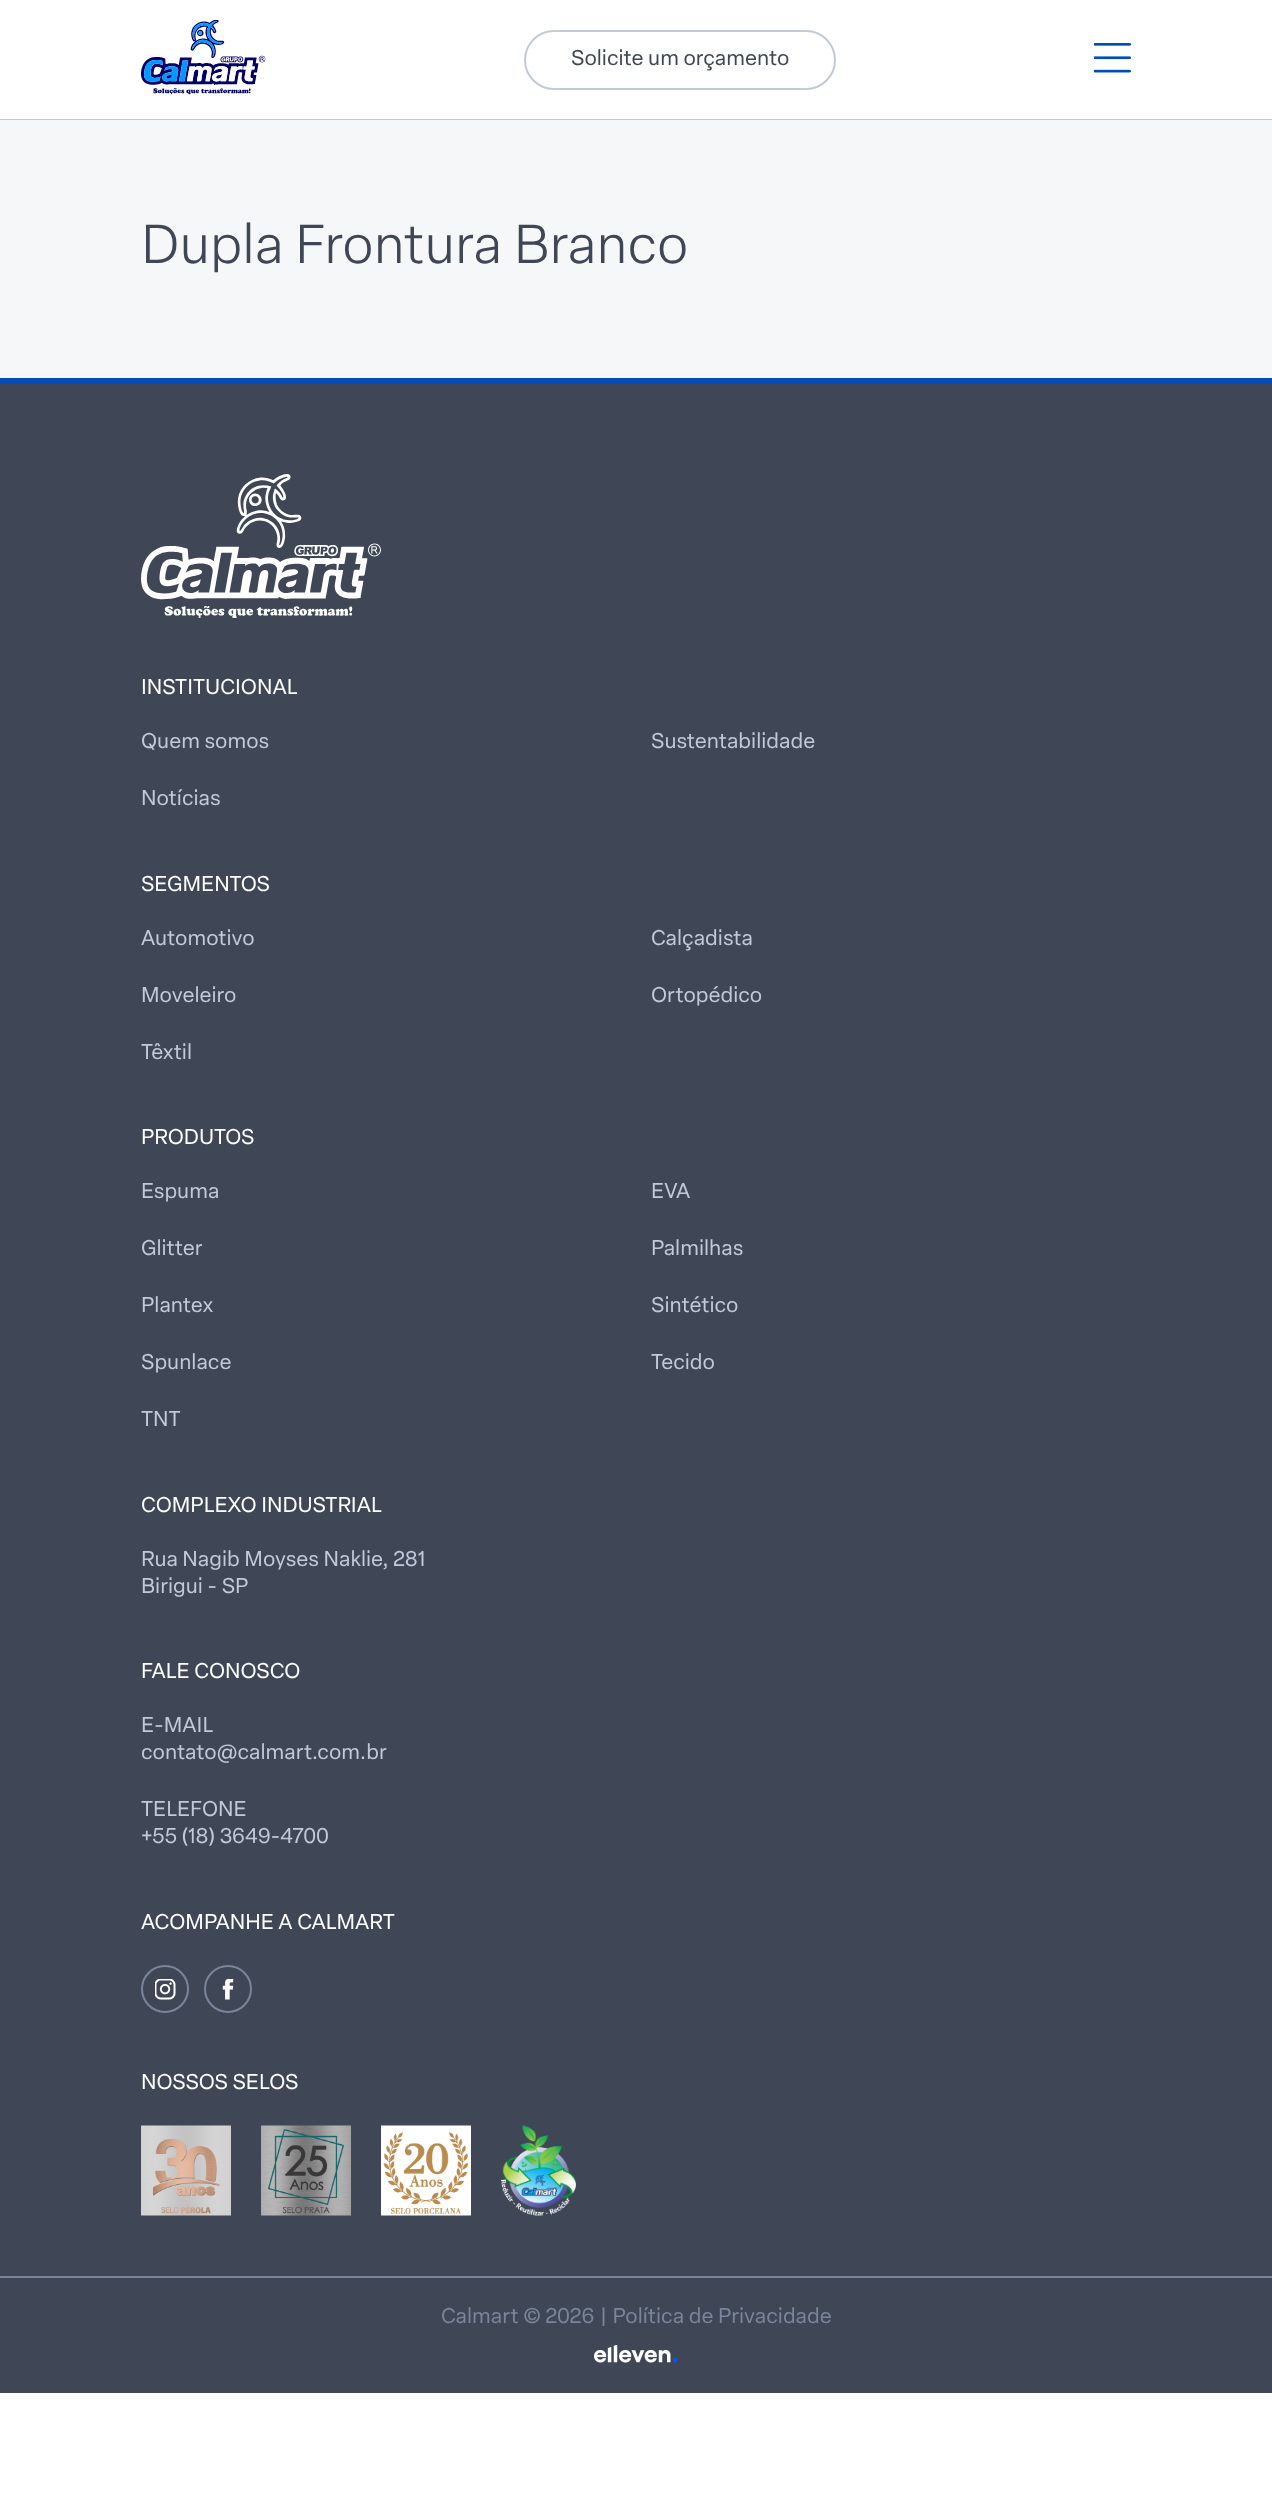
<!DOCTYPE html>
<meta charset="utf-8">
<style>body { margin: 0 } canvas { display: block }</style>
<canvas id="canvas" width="1272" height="2496"></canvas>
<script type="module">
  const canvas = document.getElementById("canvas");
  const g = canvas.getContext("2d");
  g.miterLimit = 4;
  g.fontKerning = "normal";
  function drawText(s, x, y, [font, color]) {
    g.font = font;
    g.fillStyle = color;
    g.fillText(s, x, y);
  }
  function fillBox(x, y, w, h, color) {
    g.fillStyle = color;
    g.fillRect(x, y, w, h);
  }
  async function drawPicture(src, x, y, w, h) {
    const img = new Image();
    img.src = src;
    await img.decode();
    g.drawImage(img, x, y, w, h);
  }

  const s1 = ["21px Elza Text", "#3F4756"];
  const s2 = ["300 54px Elza Text", "#3F4756"];
  const s3 = ["21px Elza Text", "#FFFFFF"];
  const s4 = ["21px Elza Text", "#C2C9DA"];
  const s5 = ["21px Elza Text", "#79859A"];

  fillBox(0, 0, 1272, 2496, "#FFFFFF");
  fillBox(0, 119, 1272, 1, "#C2C9DA");
  await drawPicture("pic1.png", 141, 20, 125, 75);
  g.beginPath();
  g.roundRect(525, 31, 310, 58, 29);
  g.strokeStyle = "#C2C9DA";
  g.lineWidth = 2;
  g.stroke();
  drawText("Solicite um orçamento", 571, 65, s1);
  await drawPicture("pic2.png", 1094, 43, 37, 30);
  fillBox(0, 120, 1272, 258, "#F6F7F9");
  fillBox(0, 378, 1272, 6, "#004DB6");
  drawText("Dupla Frontura Branco", 141, 263, s2);
  fillBox(0, 384, 1272, 2009, "#3F4756");
  await drawPicture("pic3.png", 141, 474, 240, 144);
  drawText("INSTITUCIONAL", 141, 694, s3);
  drawText("Quem somos", 141, 748, s4);
  drawText("Sustentabilidade", 651, 748, s4);
  drawText("Notícias", 141, 805, s4);
  drawText("SEGMENTOS", 141, 891, s3);
  drawText("Automotivo", 141, 945, s4);
  drawText("Calçadista", 651, 945, s4);
  drawText("Moveleiro", 141, 1002, s4);
  drawText("Ortopédico", 651, 1002, s4);
  drawText("Têxtil", 141, 1059, s4);
  drawText("PRODUTOS", 141, 1144, s3);
  drawText("Espuma", 141, 1198, s4);
  drawText("EVA", 651, 1198, s4);
  drawText("Glitter", 141, 1255, s4);
  drawText("Palmilhas", 651, 1255, s4);
  drawText("Plantex", 141, 1312, s4);
  drawText("Sintético", 651, 1312, s4);
  drawText("Spunlace", 141, 1369, s4);
  drawText("Tecido", 651, 1369, s4);
  drawText("TNT", 141, 1426, s4);
  drawText("COMPLEXO INDUSTRIAL", 141, 1512, s3);
  drawText("Rua Nagib Moyses Naklie, 281", 141, 1566, s4);
  drawText("Birigui - SP", 141, 1593, s4);
  drawText("FALE CONOSCO", 141, 1678, s3);
  drawText("E-MAIL", 141, 1732, s4);
  drawText("contato@calmart.com.br", 141, 1759, s4);
  drawText("TELEFONE", 141, 1816, s4);
  drawText("+55 (18) 3649-4700", 141, 1843, s4);
  drawText("ACOMPANHE A CALMART", 141, 1929, s3);
  g.beginPath();
  g.arc(165, 1989, 23, 0, Math.PI * 2);
  g.strokeStyle = "#79859A";
  g.stroke();
  await drawPicture("pic4.png", 155, 1979, 21, 21);
  g.beginPath();
  g.arc(228, 1989, 23, 0, Math.PI * 2);
  g.stroke();
  await drawPicture("pic5.png", 222, 1979, 12, 21);
  drawText("NOSSOS SELOS", 141, 2089, s3);
  await drawPicture("pic6.png", 141, 2125, 90, 91);
  await drawPicture("pic7.png", 261, 2125, 90, 91);
  await drawPicture("pic8.png", 381, 2125, 90, 91);
  await drawPicture("pic9.png", 501, 2125, 75, 91);
  fillBox(0, 2276, 1272, 2, "#79859A");
  drawText("Calmart © 2026 | Política de Privacidade", 441, 2323, s5);
  await drawPicture("pic10.png", 594, 2345, 84, 18);
</script>
